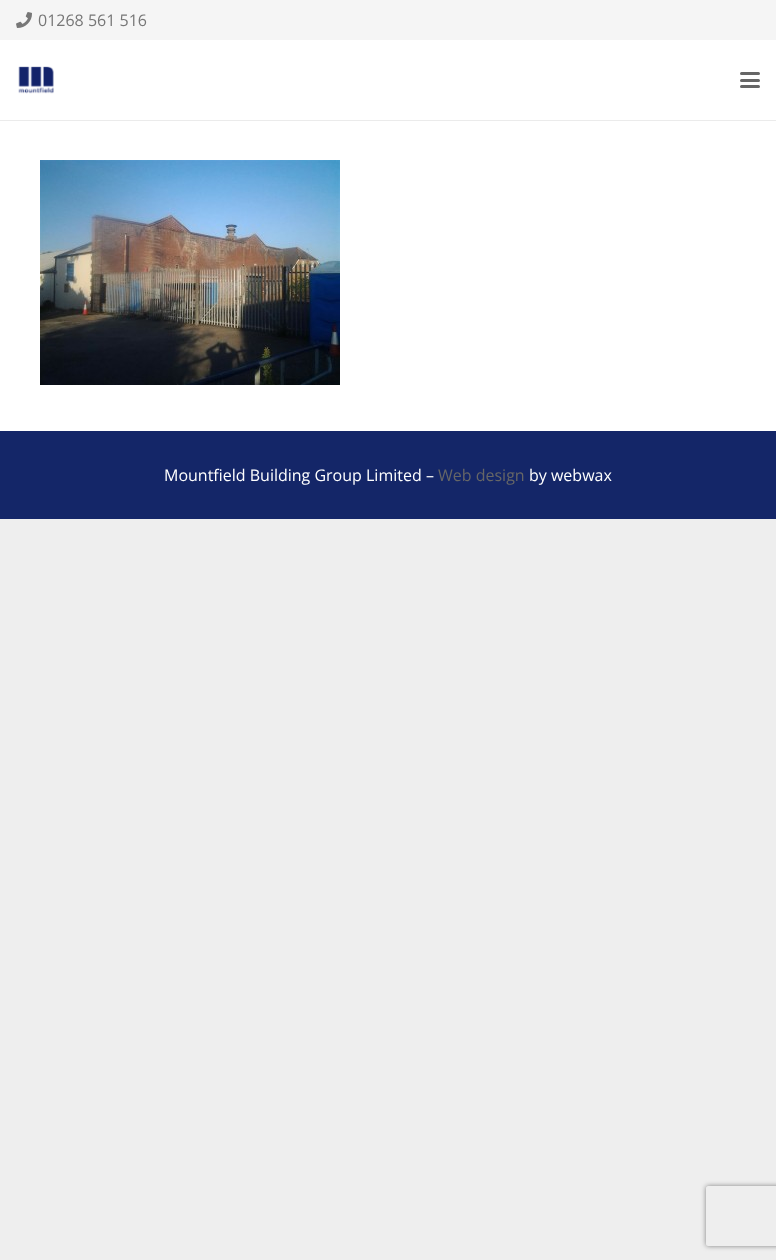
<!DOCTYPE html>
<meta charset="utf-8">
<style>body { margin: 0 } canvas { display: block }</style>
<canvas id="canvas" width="776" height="1260"></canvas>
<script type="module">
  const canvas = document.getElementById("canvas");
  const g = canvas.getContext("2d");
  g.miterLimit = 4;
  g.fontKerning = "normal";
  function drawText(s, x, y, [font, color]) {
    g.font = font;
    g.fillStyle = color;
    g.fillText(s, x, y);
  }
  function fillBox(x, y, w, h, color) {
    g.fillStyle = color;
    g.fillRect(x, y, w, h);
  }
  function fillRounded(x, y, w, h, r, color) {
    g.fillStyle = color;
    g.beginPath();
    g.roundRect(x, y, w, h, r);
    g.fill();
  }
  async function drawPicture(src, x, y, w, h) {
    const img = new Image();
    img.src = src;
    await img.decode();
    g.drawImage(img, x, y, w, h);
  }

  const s1 = ["16px Open Sans", "#777777"];
  const s2 = ["16px Open Sans", "#FFFFFF"];
  const s3 = ["16px Open Sans", "#666666"];

  fillBox(0, 0, 776, 1260, "#EEEEEE");
  fillBox(0, 40, 776, 391, "#FFFFFF");
  fillBox(0, 0, 776, 40, "#F5F5F5");
  await drawPicture("pic1.png", 16, 12, 16, 16);
  drawText("01268 561 516", 38, 26, s1);
  fillBox(0, 120, 776, 1, "#EBEBEB");
  await drawPicture("pic2.png", 18, 66, 36, 28);
  fillRounded(740, 79, 20, 3, 1.5, "#666666");
  fillRounded(740, 72, 20, 3, 1.5, "#666666");
  fillRounded(740, 85, 20, 3, 1.5, "#666666");
  await drawPicture("pic3.png", 40, 160, 300, 225);
  fillBox(0, 431, 776, 88, "#142668");
  drawText("Mountfield Building Group Limited –", 164, 481, s2);
  drawText("Web design", 438, 481, s3);
  drawText("by webwax", 529, 481, s2);
  g.save();
  g.beginPath();
  g.moveTo(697, 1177);
  g.lineTo(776, 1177);
  g.lineTo(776, 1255);
  g.lineTo(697, 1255);
  g.closePath();
  g.moveTo(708, 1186);
  g.lineTo(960, 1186);
  g.bezierCurveTo(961, 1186, 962, 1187, 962, 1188);
  g.lineTo(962, 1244);
  g.bezierCurveTo(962, 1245, 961, 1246, 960, 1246);
  g.lineTo(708, 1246);
  g.bezierCurveTo(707, 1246, 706, 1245, 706, 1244);
  g.lineTo(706, 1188);
  g.bezierCurveTo(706, 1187, 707, 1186, 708, 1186);
  g.closePath();
  g.clip("evenodd");
  g.fillStyle = "#808080";
  g.filter = "blur(2.5px)";
  g.beginPath();
  g.roundRect(706, 1186, 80, 60, 2);
  g.fill();
  g.filter = "none";
  g.restore();
</script>
